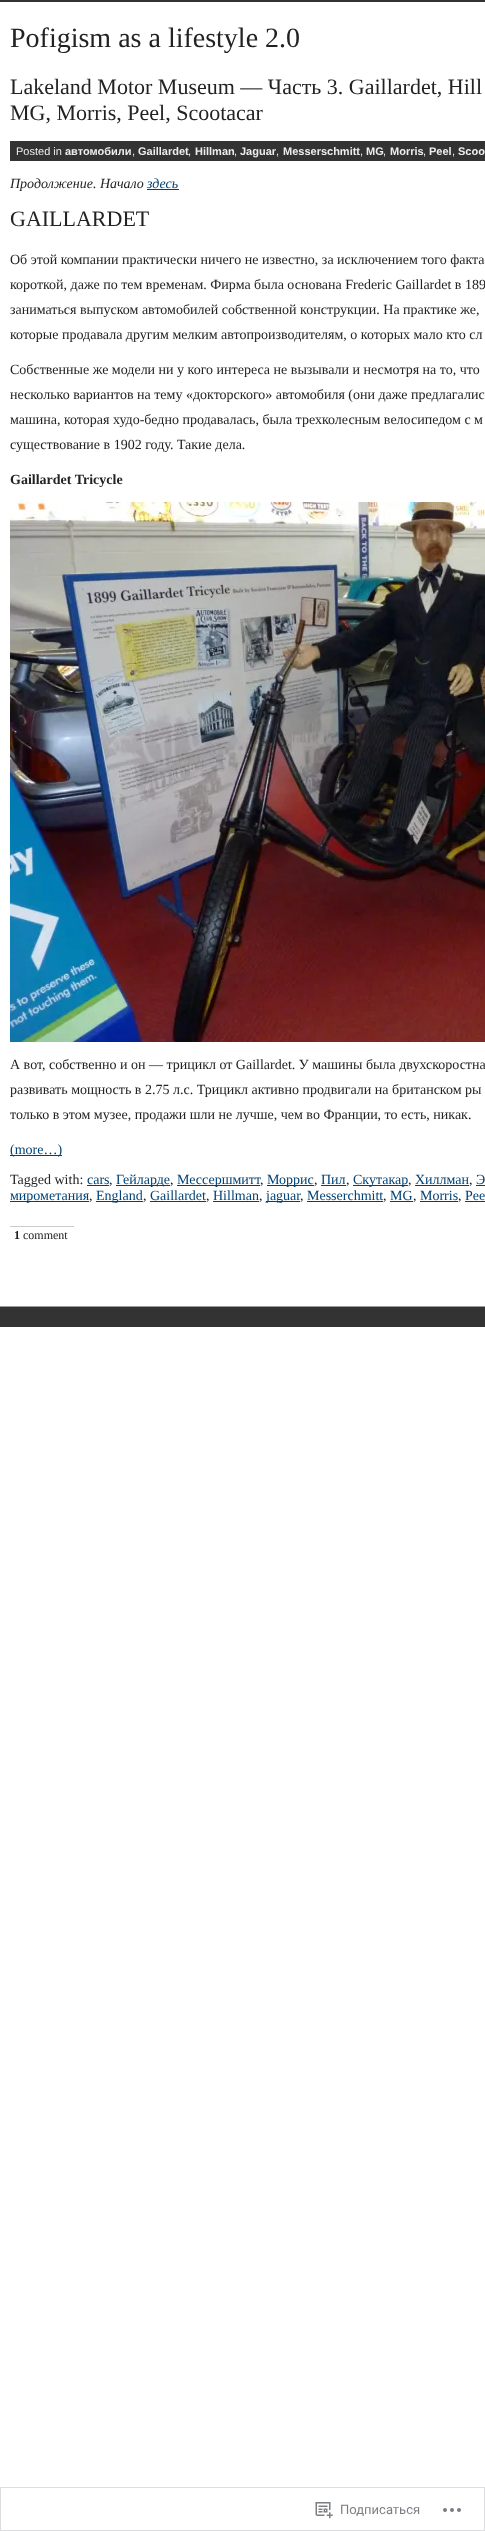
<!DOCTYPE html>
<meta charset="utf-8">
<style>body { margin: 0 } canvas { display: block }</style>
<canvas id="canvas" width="485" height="2531"></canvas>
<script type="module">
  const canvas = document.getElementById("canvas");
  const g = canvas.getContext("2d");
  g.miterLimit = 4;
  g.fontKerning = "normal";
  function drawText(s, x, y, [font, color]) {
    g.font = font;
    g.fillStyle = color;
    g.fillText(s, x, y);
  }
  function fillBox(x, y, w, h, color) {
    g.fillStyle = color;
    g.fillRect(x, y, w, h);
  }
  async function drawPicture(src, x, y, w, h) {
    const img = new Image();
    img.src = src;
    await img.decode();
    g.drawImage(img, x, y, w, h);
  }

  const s1 = ["28px Liberation Serif", "#222222"];
  const s2 = ["22px Liberation Serif", "#222222"];
  const s3 = ["11px Liberation Sans", "#EEEEEE"];
  const s4 = ["bold 11px Liberation Sans", "#EEEEEE"];
  const s5 = ["italic 14px Liberation Serif", "#222222"];
  const s6 = ["italic 14px Liberation Serif", "#004276"];
  const s7 = ["14px Liberation Serif", "#222222"];
  const s8 = ["bold 14px Liberation Serif", "#222222"];
  const s9 = ["14px Liberation Serif", "#004276"];
  const s10 = ["bold 12px Liberation Serif", "#222222"];
  const s11 = ["12px Liberation Serif", "#222222"];
  const s12 = ["13px Roboto", "#7B7F85"];

  fillBox(0, 0, 485, 2531, "#FFFFFF");
  fillBox(0, 0, 485, 2, "#333333");
  drawText("Pofigism as a lifestyle 2.0", 10, 47, s1);
  drawText("Lakeland Motor Museum — Часть 3. Gaillardet, Hill", 10, 94, s2);
  drawText("MG, Morris, Peel, Scootacar", 10, 120, s2);
  fillBox(10, 141, 475, 20, "#333333");
  drawText("Posted in", 16, 155, s3);
  drawText("автомобили", 65, 155, s4);
  drawText(",", 132, 155, s3);
  drawText("Gaillardet", 138, 155, s4);
  drawText(",", 188, 155, s3);
  drawText("Hillman", 195, 155, s4);
  drawText(",", 234, 155, s3);
  drawText("Jaguar", 240, 155, s4);
  drawText(",", 276, 155, s3);
  drawText("Messerschmitt", 283, 155, s4);
  drawText(",", 360, 155, s3);
  drawText("MG", 366, 155, s4);
  drawText(",", 383, 155, s3);
  drawText("Morris", 390, 155, s4);
  drawText(",", 423, 155, s3);
  drawText("Peel", 429, 155, s4);
  drawText(",", 452, 155, s3);
  drawText("Scoo", 458, 155, s4);
  drawText("Продолжение. Начало", 10, 188, s5);
  drawText("здесь", 147, 188, s6);
  fillBox(147, 189, 32, 1, "#004276");
  drawText("GAILLARDET", 10, 226, s2);
  drawText("Об этой компании практически ничего не известно, за исключением того факта", 10, 264, s7);
  drawText("короткой, даже по тем временам. Фирма была основана Frederic Gaillardet в 189", 10, 289, s7);
  drawText("заниматься выпуском автомобилей собственной конструкции. На практике же,", 10, 314, s7);
  drawText("которые продавала другим мелким автопроизводителям, о которых мало кто сл", 10, 339, s7);
  drawText("Собственные же модели ни у кого интереса не вызывали и несмотря на то, что", 10, 374, s7);
  drawText("несколько вариантов на тему «докторского» автомобиля (они даже предлагалис", 10, 399, s7);
  drawText("машина, которая худо-бедно продавалась, была трехколесным велосипедом с м", 10, 424, s7);
  drawText("существование в 1902 году. Такие дела.", 10, 449, s7);
  drawText("Gaillardet Tricycle", 10, 484, s8);
  await drawPicture("pic1.png", 10, 502, 475, 540);
  drawText("А вот, собственно и он — трицикл от Gaillardet. У машины была двухскоростна", 10, 1069, s7);
  drawText("развивать мощность в 2.75 л.с. Трицикл активно продвигали на британском ры", 10, 1094, s7);
  drawText("только в этом музее, продажи шли не лучше, чем во Франции, то есть, никак.", 10, 1119, s7);
  fillBox(10, 1155, 52, 1, "#004276");
  drawText("(more…)", 10, 1154, s9);
  drawText("Tagged with:", 10, 1184, s7);
  drawText("cars", 87, 1184, s9);
  fillBox(87, 1185, 22, 1, "#004276");
  drawText(",", 109, 1184, s7);
  fillBox(116, 1185, 54, 1, "#004276");
  drawText("Гейларде", 116, 1184, s9);
  drawText(",", 170, 1184, s7);
  fillBox(177, 1185, 83, 1, "#004276");
  drawText("Мессершмитт", 177, 1184, s9);
  fillBox(267, 1185, 47, 1, "#004276");
  drawText("Моррис", 267, 1184, s9);
  drawText("Пил", 321, 1184, s9);
  fillBox(321, 1185, 25, 1, "#004276");
  fillBox(353, 1185, 55, 1, "#004276");
  drawText("Скутакар", 353, 1184, s9);
  drawText("Хиллман", 415, 1184, s9);
  fillBox(415, 1185, 54, 1, "#004276");
  drawText("Э", 476, 1184, s9);
  fillBox(476, 1185, 9, 1, "#004276");
  drawText(",", 260, 1184, s7);
  drawText(",", 314, 1184, s7);
  drawText(",", 346, 1184, s7);
  drawText(",", 408, 1184, s7);
  drawText(",", 469, 1184, s7);
  fillBox(10, 1201, 79, 1, "#004276");
  drawText("мирометания", 10, 1200, s9);
  drawText(",", 89, 1200, s7);
  fillBox(96, 1201, 47, 1, "#004276");
  drawText("England", 96, 1200, s9);
  drawText(",", 143, 1200, s7);
  drawText("Gaillardet", 150, 1200, s9);
  fillBox(150, 1201, 56, 1, "#004276");
  drawText(",", 206, 1200, s7);
  drawText("Hillman", 213, 1200, s9);
  fillBox(213, 1201, 46, 1, "#004276");
  drawText(",", 259, 1200, s7);
  fillBox(266, 1201, 34, 1, "#004276");
  drawText("jaguar", 266, 1200, s9);
  drawText(",", 300, 1200, s7);
  drawText("Messerchmitt", 307, 1200, s9);
  fillBox(307, 1201, 76, 1, "#004276");
  drawText(",", 383, 1200, s7);
  drawText("MG", 390, 1200, s9);
  fillBox(390, 1201, 23, 1, "#004276");
  drawText(",", 413, 1200, s7);
  drawText("Morris", 420, 1200, s9);
  fillBox(420, 1201, 38, 1, "#004276");
  drawText(",", 458, 1200, s7);
  drawText("Pee", 465, 1200, s9);
  fillBox(465, 1201, 20, 1, "#004276");
  drawText("1", 14, 1239, s10);
  fillBox(10, 1226, 64, 1, "#CCCCCC");
  drawText("comment", 23, 1239, s11);
  fillBox(0, 1307, 485, 20, "#333333");
  fillBox(0, 1306, 485, 1, "#999999");
  g.strokeStyle = "#DDDDDF";
  g.strokeRect(0.5, 2487.5, 484, 43);
  await drawPicture("pic2.png", 315, 2502, 18, 17);
  drawText("Подписаться", 340, 2514, s12);
  await drawPicture("pic3.png", 443, 2508, 18, 4);
</script>
